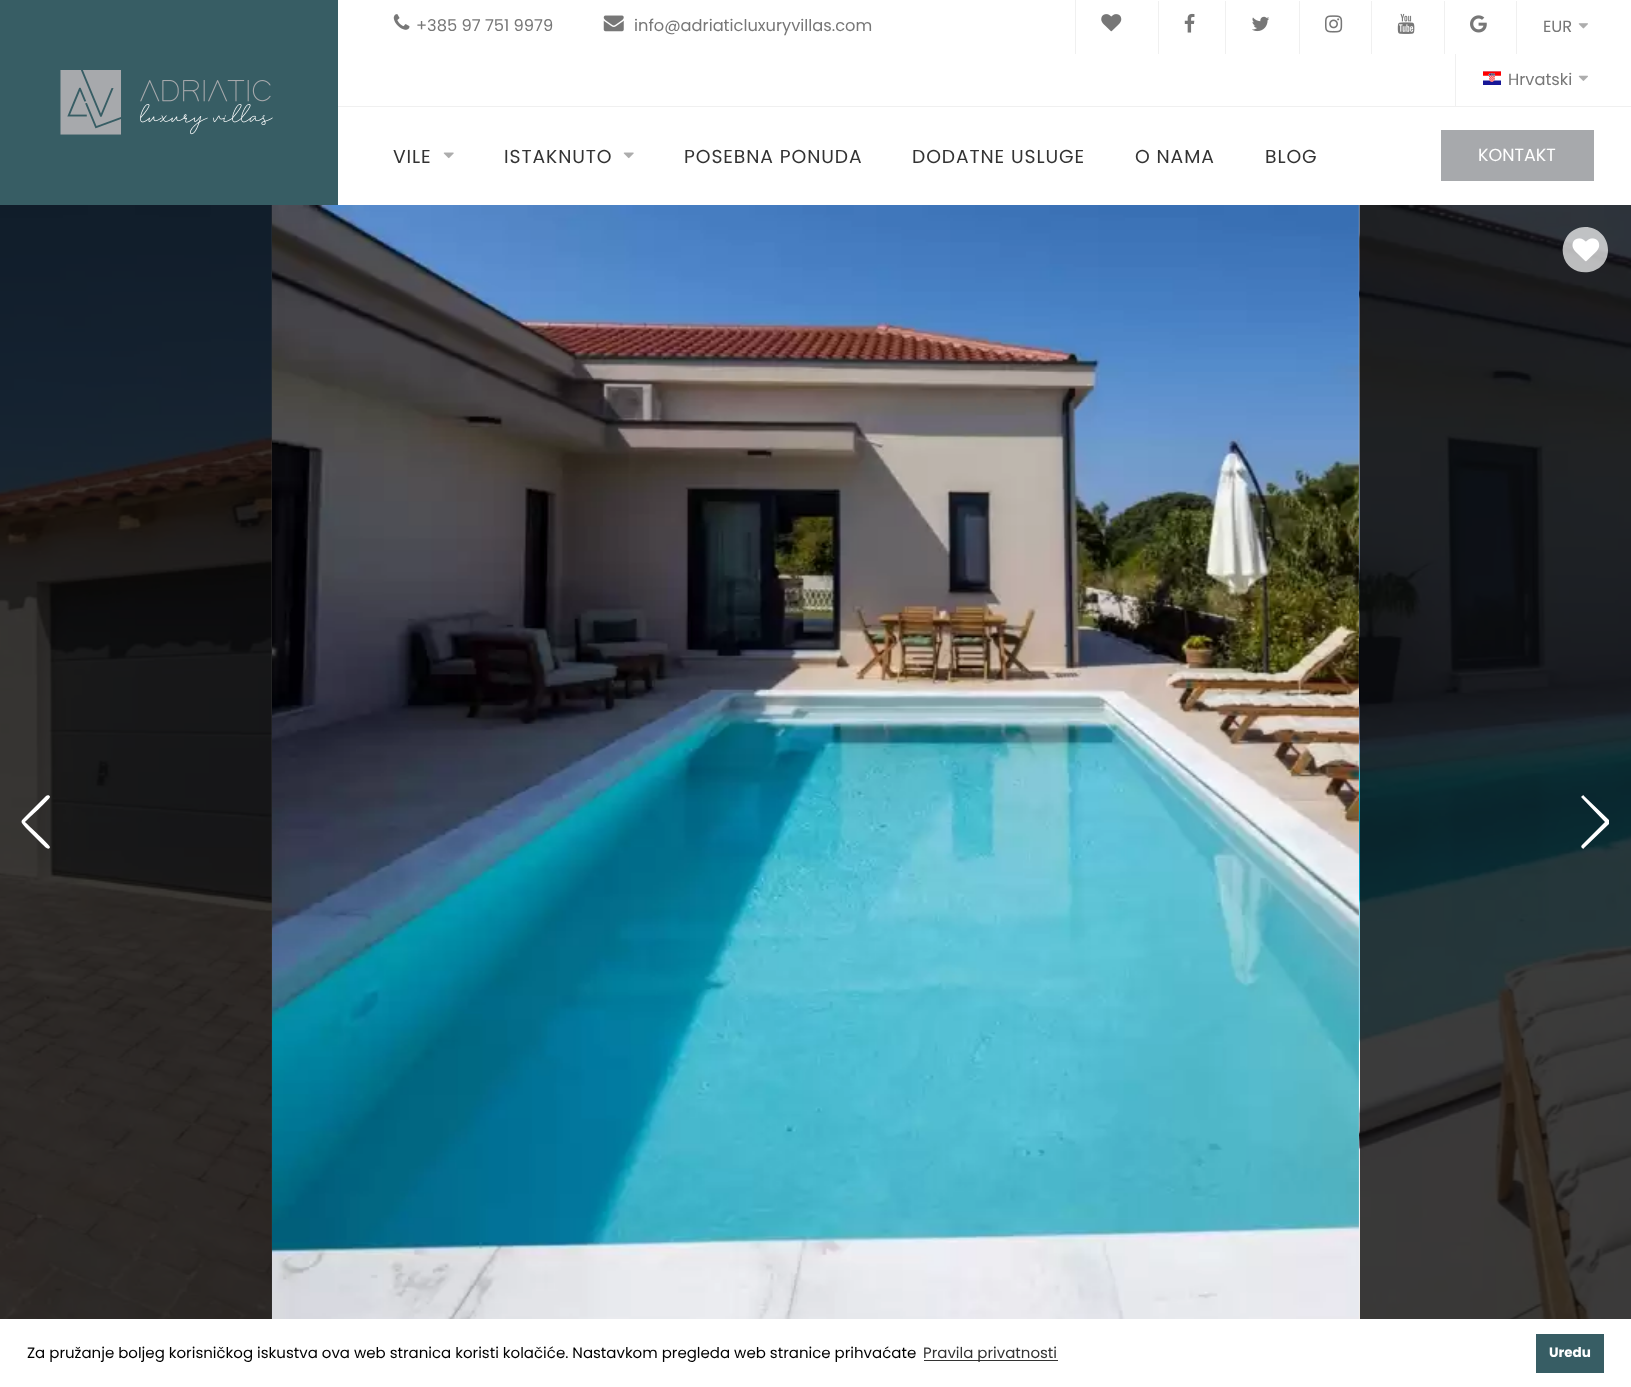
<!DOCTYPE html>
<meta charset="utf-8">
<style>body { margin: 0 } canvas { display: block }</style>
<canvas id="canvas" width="1631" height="1387"></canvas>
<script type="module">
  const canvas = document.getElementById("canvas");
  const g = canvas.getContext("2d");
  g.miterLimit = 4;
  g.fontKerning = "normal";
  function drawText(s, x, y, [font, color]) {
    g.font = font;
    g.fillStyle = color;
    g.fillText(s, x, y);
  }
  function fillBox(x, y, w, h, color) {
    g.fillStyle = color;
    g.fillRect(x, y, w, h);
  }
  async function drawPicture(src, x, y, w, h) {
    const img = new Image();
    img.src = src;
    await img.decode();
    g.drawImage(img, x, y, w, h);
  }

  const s1 = ["16.25px Poppins", "#777777"];
  const s2 = ["18.75px Poppins", "#333333"];
  const s3 = ["17.5px Poppins", "#FFFFFF"];
  const s4 = ["15px Poppins", "#000000"];
  const s5 = ["15px Poppins", "#333333"];
  const s6 = ["bold 13.5px Poppins", "#FFFFFF"];

  fillBox(0, 0, 1631, 1387, "#FFFFFF");
  fillBox(271, 205, 1, 1114, "#3C3C3C");
  fillBox(0, 0, 338, 205, "#375D64");
  await drawPicture("pic1.png", 60, 70, 213, 65);
  fillBox(338, 106, 1293, 1, "#F0F0F0");
  await drawPicture("pic2.png", 393, 14, 17, 16);
  drawText("+385 97 751 9979", 416, 31, s1);
  await drawPicture("pic3.png", 603, 15, 21, 17);
  drawText("info@adriaticluxuryvillas.com", 634, 31, s1);
  fillBox(1075, 0, 1, 54, "#F0F0F0");
  await drawPicture("pic4.png", 1101, 14, 21, 18);
  fillBox(1158, 1, 1, 53, "#F0F0F0");
  await drawPicture("pic5.png", 1184, 13, 11, 20);
  fillBox(1225, 1, 1, 53, "#F0F0F0");
  await drawPicture("pic6.png", 1252, 16, 18, 16);
  fillBox(1299, 1, 1, 53, "#F0F0F0");
  await drawPicture("pic7.png", 1325, 15, 18, 18);
  fillBox(1371, 1, 1, 53, "#F0F0F0");
  await drawPicture("pic8.png", 1397, 13, 18, 21);
  fillBox(1444, 1, 1, 53, "#F0F0F0");
  await drawPicture("pic9.png", 1470, 15, 17, 18);
  fillBox(1516, 1, 1, 53, "#F0F0F0");
  drawText("EUR", 1543, 32, s1);
  await drawPicture("pic10.png", 1578, 23, 10, 6);
  fillBox(1455, 54, 1, 52, "#F0F0F0");
  await drawPicture("pic11.png", 1483, 71, 18, 14);
  drawText("Hrvatski", 1508, 85, s1);
  await drawPicture("pic12.png", 1578, 75, 10, 6);
  g.letterSpacing = "0.9px";
  drawText("VILE", 393, 163, s2);
  await drawPicture("pic13.png", 443, 152, 11, 7);
  drawText("ISTAKNUTO", 504, 163, s2);
  await drawPicture("pic13.png", 623, 152, 11, 7);
  drawText("POSEBNA PONUDA", 684, 163, s2);
  drawText("DODATNE USLUGE", 912, 163, s2);
  drawText("O NAMA", 1135, 163, s2);
  drawText("BLOG", 1265, 163, s2);
  fillBox(1441, 130, 153, 51, "#A7A9AC");
  g.letterSpacing = "0px";
  drawText("KONTAKT", 1478, 161, s3);
  await drawPicture("pic14.png", 0, 205, 272, 1114);
  await drawPicture("pic15.png", 272, 205, 1087, 1114);
  await drawPicture("pic16.png", 1359, 205, 272, 1114);
  g.fillStyle = "rgba(255, 255, 255, 0.7)";
  g.beginPath();
  g.moveTo(1608, 250);
  g.bezierCurveTo(1608, 277, 1568, 281, 1563, 254);
  g.bezierCurveTo(1562, 249, 1563, 243, 1566, 238);
  g.bezierCurveTo(1570, 231, 1577, 227, 1585, 227);
  g.bezierCurveTo(1598, 227, 1608, 237, 1608, 250);
  g.closePath();
  g.fill();
  await drawPicture("pic17.png", 1572, 238, 28, 24);
  g.fillStyle = "#FFFFFF";
  g.beginPath();
  g.moveTo(46, 796);
  g.bezierCurveTo(47, 795, 50, 795, 50, 797);
  g.bezierCurveTo(50, 799, 28, 819, 25, 822);
  g.bezierCurveTo(28, 825, 50, 845, 50, 847);
  g.bezierCurveTo(49, 851, 45, 847, 42, 844);
  g.lineTo(26, 828);
  g.bezierCurveTo(20, 821, 20, 822, 26, 816);
  g.closePath();
  g.fill();
  g.beginPath();
  g.moveTo(1582, 848);
  g.bezierCurveTo(1581, 847, 1581, 846, 1582, 845);
  g.lineTo(1605, 822);
  g.lineTo(1582, 798);
  g.bezierCurveTo(1581, 797, 1581, 797, 1582, 796);
  g.bezierCurveTo(1583, 795, 1584, 795, 1584, 796);
  g.lineTo(1609, 820);
  g.lineTo(1609, 822);
  g.lineTo(1609, 824);
  g.lineTo(1584, 848);
  g.bezierCurveTo(1584, 849, 1583, 849, 1582, 848);
  g.closePath();
  g.fill();
  drawText("Za pružanje boljeg korisničkog iskustva ova web stranica koristi kolačiće. Nastavkom pregleda web stranice prihvaćate", 27, 1358, s4);
  fillBox(924, 1360, 134, 1, "#333333");
  drawText("Pravila privatnosti", 923, 1358, s5);
  fillBox(1536, 1334, 68, 39, "#375D64");
  drawText("Uredu", 1549, 1357, s6);
</script>
